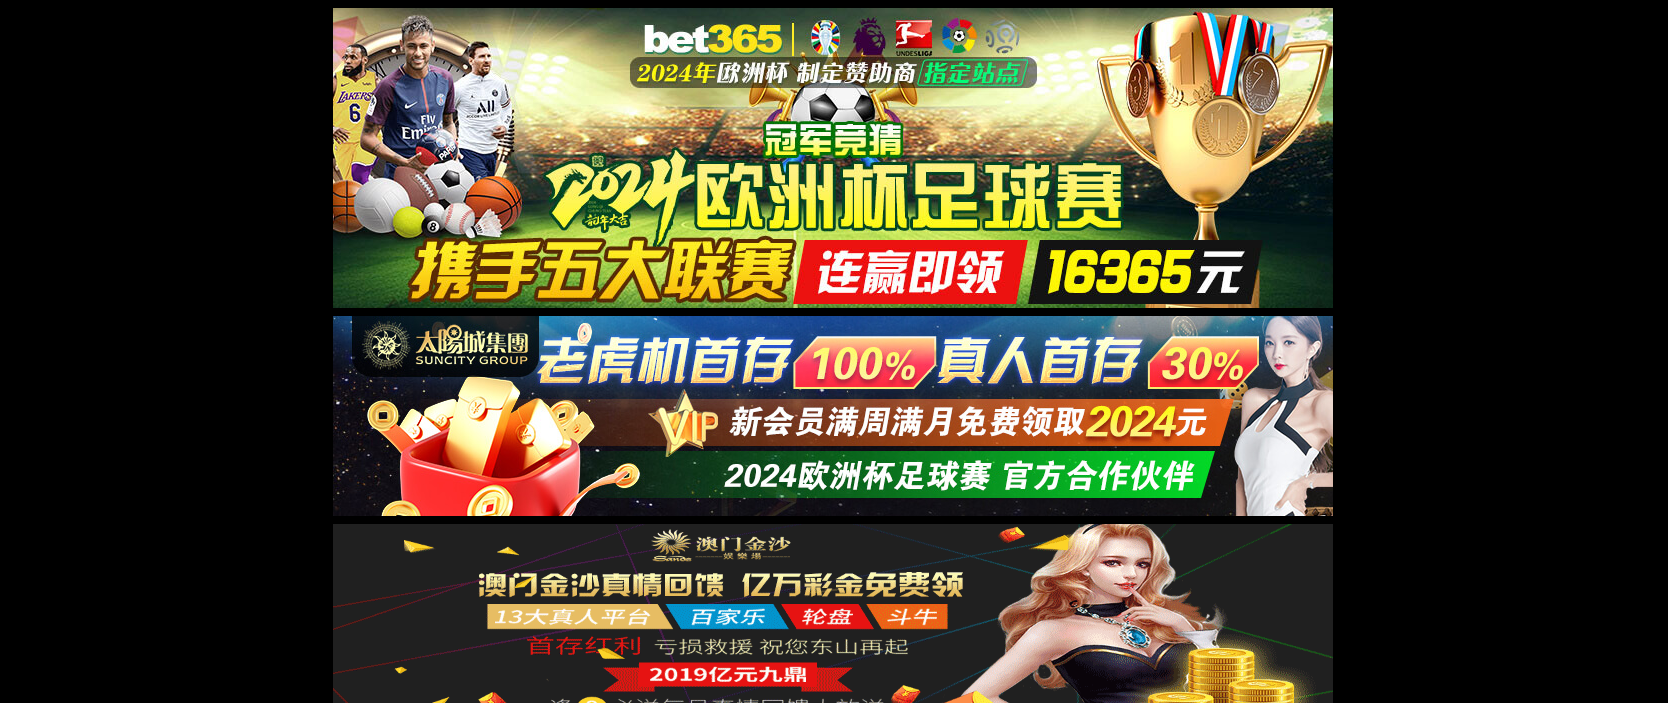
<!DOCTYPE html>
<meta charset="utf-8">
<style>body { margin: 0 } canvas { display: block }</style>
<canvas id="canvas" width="1668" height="703"></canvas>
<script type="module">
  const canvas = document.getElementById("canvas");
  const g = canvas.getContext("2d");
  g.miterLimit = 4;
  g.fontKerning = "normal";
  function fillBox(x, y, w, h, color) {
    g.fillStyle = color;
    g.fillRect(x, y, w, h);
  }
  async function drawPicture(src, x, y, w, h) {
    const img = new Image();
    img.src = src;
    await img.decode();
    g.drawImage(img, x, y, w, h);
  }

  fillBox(0, 0, 1668, 703, "#000000");
  await drawPicture("pic1.png", 333, 8, 1000, 695);
</script>
